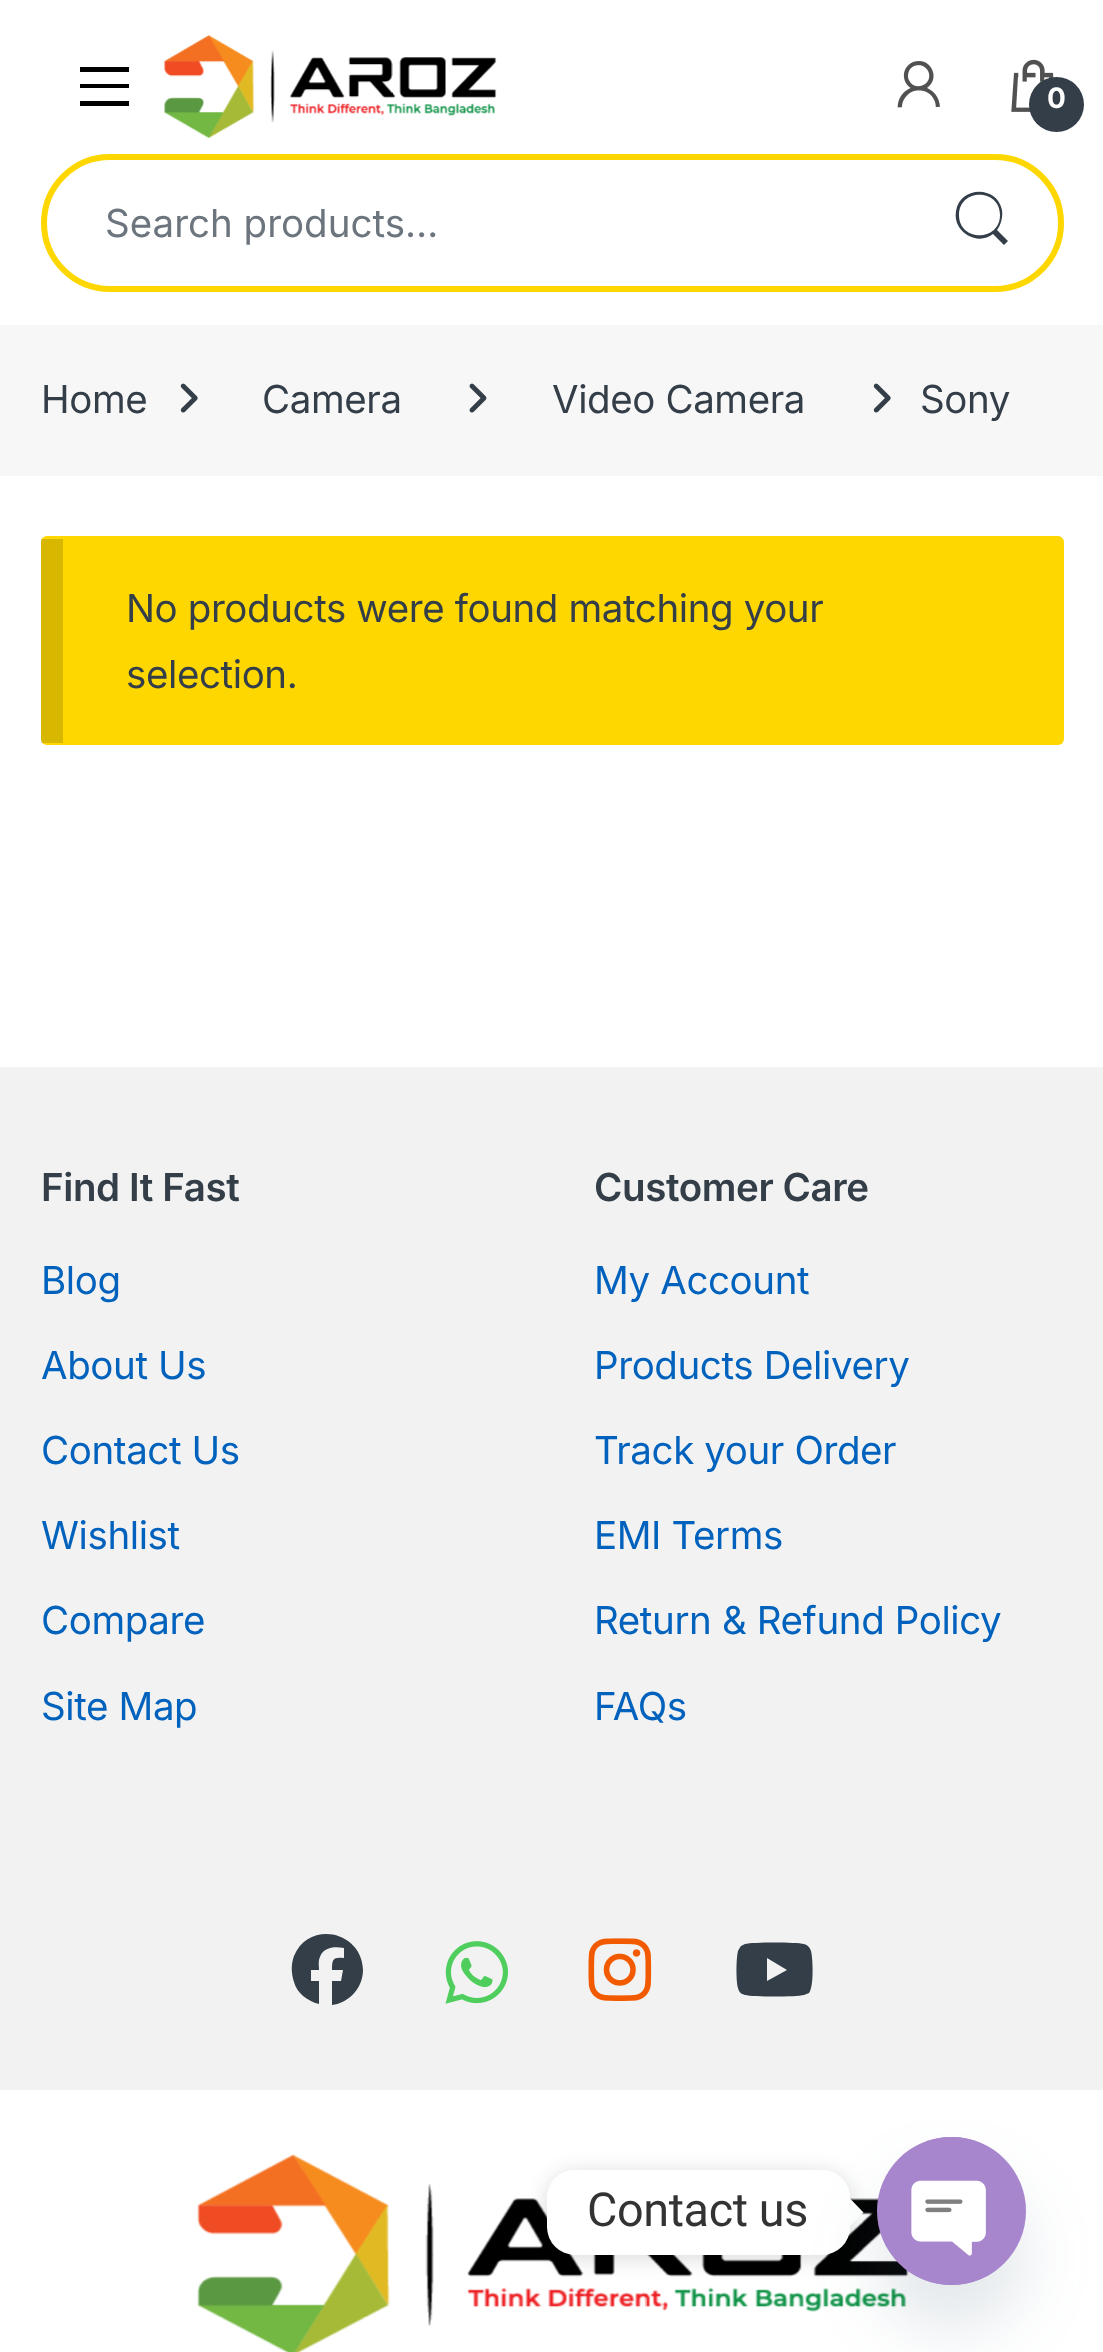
<!DOCTYPE html>
<meta charset="utf-8">
<style>body { margin: 0 } canvas { display: block }</style>
<canvas id="canvas" width="1103" height="2352"></canvas>
<script type="module">
  const canvas = document.getElementById("canvas");
  const g = canvas.getContext("2d");
  g.miterLimit = 4;
  g.fontKerning = "normal";
  function drawText(s, x, y, [font, color]) {
    g.font = font;
    g.fillStyle = color;
    g.fillText(s, x, y);
  }
  function fillBox(x, y, w, h, color) {
    g.fillStyle = color;
    g.fillRect(x, y, w, h);
  }
  function fillRounded(x, y, w, h, r, color) {
    g.fillStyle = color;
    g.beginPath();
    g.roundRect(x, y, w, h, r);
    g.fill();
  }
  async function drawPicture(src, x, y, w, h) {
    const img = new Image();
    img.src = src;
    await img.decode();
    g.drawImage(img, x, y, w, h);
  }

  const s1 = ["bold 28px Inter", "#FFFFFF"];
  const s2 = ["38.5px Inter", "#6C757D"];
  const s3 = ["38.5px Inter", "#333E48"];
  const s4 = ["600 38.5px Inter", "#333E48"];
  const s5 = ["38.5px Inter", "#0062BD"];
  const s6 = ["46.75px Roboto", "#333333"];

  fillBox(0, 0, 1103, 2352, "#FFFFFF");
  g.fillStyle = "#000000";
  g.beginPath();
  g.moveTo(80, 106);
  g.lineTo(80, 101);
  g.lineTo(129, 101);
  g.lineTo(129, 106);
  g.closePath();
  g.moveTo(80, 84);
  g.lineTo(129, 84);
  g.lineTo(129, 88);
  g.lineTo(80, 88);
  g.closePath();
  g.moveTo(80, 67);
  g.lineTo(129, 67);
  g.lineTo(129, 72);
  g.lineTo(80, 72);
  g.closePath();
  g.fill();
  await drawPicture("pic1.png", 163, 35, 334, 104);
  await drawPicture("pic2.png", 897, 61, 43, 47);
  await drawPicture("pic3.png", 1011, 59, 43, 53);
  g.fillStyle = "#333E48";
  g.beginPath();
  g.arc(1056.5, 104.5, 27.5, 0, Math.PI * 2);
  g.fill();
  g.letterSpacing = "-0.4px";
  drawText("0", 1047, 108, s1);
  g.beginPath();
  g.roundRect(44, 157, 1017, 132, 66);
  g.strokeStyle = "#FED700";
  g.lineWidth = 6;
  g.stroke();
  g.letterSpacing = "0px";
  drawText("Search products…", 105, 237, s2);
  g.fillStyle = "#333E48";
  g.beginPath();
  g.moveTo(1008, 241);
  g.lineTo(997, 230);
  g.bezierCurveTo(1001, 225, 1003, 217, 1002, 210);
  g.bezierCurveTo(997, 185, 960, 186, 956, 211);
  g.bezierCurveTo(955, 217, 956, 222, 959, 227);
  g.bezierCurveTo(966, 238, 982, 243, 993, 234);
  g.lineTo(1004, 245);
  g.closePath();
  g.moveTo(959, 215);
  g.bezierCurveTo(959, 188, 1000, 188, 1000, 215);
  g.bezierCurveTo(1000, 242, 959, 242, 959, 215);
  g.closePath();
  g.fill();
  fillBox(0, 325, 1103, 151, "#F7F7F7");
  g.letterSpacing = "-0.4px";
  drawText("Home", 41, 413, s3);
  await drawPicture("pic4.png", 180, 383, 18, 30);
  drawText("Camera", 262, 413, s3);
  await drawPicture("pic5.png", 469, 383, 18, 30);
  drawText("Video Camera", 552, 413, s3);
  await drawPicture("pic4.png", 873, 383, 18, 30);
  drawText("Sony", 920, 413, s3);
  fillRounded(41, 536, 1023, 209, 6, "#FED700");
  fillBox(41, 539, 22, 204, "rgba(0, 0, 0, 0.15)");
  drawText("No products were found matching your", 126, 622, s3);
  drawText("selection.", 126, 688, s3);
  fillBox(0, 1067, 1103, 1023, "#F2F2F2");
  drawText("Find It Fast", 41, 1201, s4);
  drawText("Blog", 41, 1294, s5);
  drawText("About Us", 41, 1379, s5);
  drawText("Contact Us", 41, 1464, s5);
  drawText("Wishlist", 41, 1549, s5);
  drawText("Compare", 41, 1634, s5);
  drawText("Site Map", 41, 1720, s5);
  drawText("Customer Care", 594, 1201, s4);
  drawText("My Account", 594, 1294, s5);
  drawText("Products Delivery", 594, 1379, s5);
  drawText("Track your Order", 594, 1464, s5);
  drawText("EMI Terms", 594, 1549, s5);
  drawText("Return & Refund Policy", 594, 1634, s5);
  drawText("FAQs", 594, 1720, s5);
  g.fillStyle = "#333E48";
  g.beginPath();
  g.moveTo(363, 1970);
  g.bezierCurveTo(362, 1931, 309, 1920, 294, 1956);
  g.bezierCurveTo(291, 1964, 291, 1973, 294, 1982);
  g.bezierCurveTo(297, 1993, 307, 2001, 319, 2004);
  g.lineTo(319, 1981);
  g.lineTo(311, 1981);
  g.lineTo(311, 1970);
  g.lineTo(319, 1970);
  g.bezierCurveTo(319, 1965, 318, 1961, 320, 1957);
  g.bezierCurveTo(323, 1947, 335, 1946, 344, 1948);
  g.lineTo(344, 1958);
  g.bezierCurveTo(333, 1957, 332, 1959, 332, 1970);
  g.lineTo(343, 1970);
  g.lineTo(341, 1981);
  g.lineTo(332, 1981);
  g.lineTo(332, 2005);
  g.bezierCurveTo(349, 2003, 363, 1988, 363, 1970);
  g.closePath();
  g.fill();
  await drawPicture("pic6.png", 445, 1941, 64, 63);
  await drawPicture("pic7.png", 588, 1938, 64, 63);
  g.beginPath();
  g.moveTo(811, 1951);
  g.bezierCurveTo(810, 1948, 808, 1945, 804, 1944);
  g.bezierCurveTo(796, 1942, 753, 1942, 745, 1944);
  g.lineTo(741, 1946);
  g.bezierCurveTo(740, 1947, 739, 1949, 738, 1951);
  g.bezierCurveTo(736, 1959, 736, 1981, 738, 1988);
  g.bezierCurveTo(739, 1992, 741, 1994, 745, 1995);
  g.bezierCurveTo(753, 1997, 796, 1997, 804, 1995);
  g.lineTo(809, 1993);
  g.bezierCurveTo(814, 1987, 813, 1959, 811, 1951);
  g.closePath();
  g.moveTo(767, 1981);
  g.lineTo(767, 1958);
  g.lineTo(767, 1981);
  g.lineTo(767, 1958);
  g.lineTo(787, 1970);
  g.closePath();
  g.fill();
  await drawPicture("pic8.png", 197, 2154, 712, 198);
  g.save();
  g.beginPath();
  g.moveTo(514, 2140);
  g.lineTo(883, 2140);
  g.lineTo(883, 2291);
  g.lineTo(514, 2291);
  g.closePath();
  g.moveTo(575, 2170);
  g.lineTo(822, 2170);
  g.bezierCurveTo(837.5, 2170, 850, 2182.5, 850, 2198);
  g.lineTo(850, 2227);
  g.bezierCurveTo(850, 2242.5, 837.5, 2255, 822, 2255);
  g.lineTo(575, 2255);
  g.bezierCurveTo(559.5, 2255, 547, 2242.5, 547, 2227);
  g.lineTo(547, 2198);
  g.bezierCurveTo(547, 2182.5, 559.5, 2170, 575, 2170);
  g.closePath();
  g.clip("evenodd");
  g.fillStyle = "rgba(0, 0, 0, 0.15)";
  g.filter = "blur(10.5px)";
  g.beginPath();
  g.roundRect(547, 2173, 303, 85, 28);
  g.fill();
  g.filter = "none";
  g.restore();
  fillRounded(547, 2170, 303, 85, 28, "#FFFFFF");
  drawText("Contact us", 587, 2226, s6);
  g.fillStyle = "#FFFFFF";
  g.beginPath();
  g.moveTo(850, 2226);
  g.lineTo(850, 2198.5);
  g.lineTo(863.5, 2212.5);
  g.closePath();
  g.fill();
  g.fillStyle = "rgba(73, 104, 126, 0.16)";
  g.filter = "blur(33px)";
  g.beginPath();
  g.roundRect(877, 2181, 149, 148, 74);
  g.fill();
  g.filter = "none";
  fillRounded(877, 2137, 149, 148, 74, "#A886CD");
  await drawPicture("pic9.png", 903, 2137, 96, 148);
</script>
